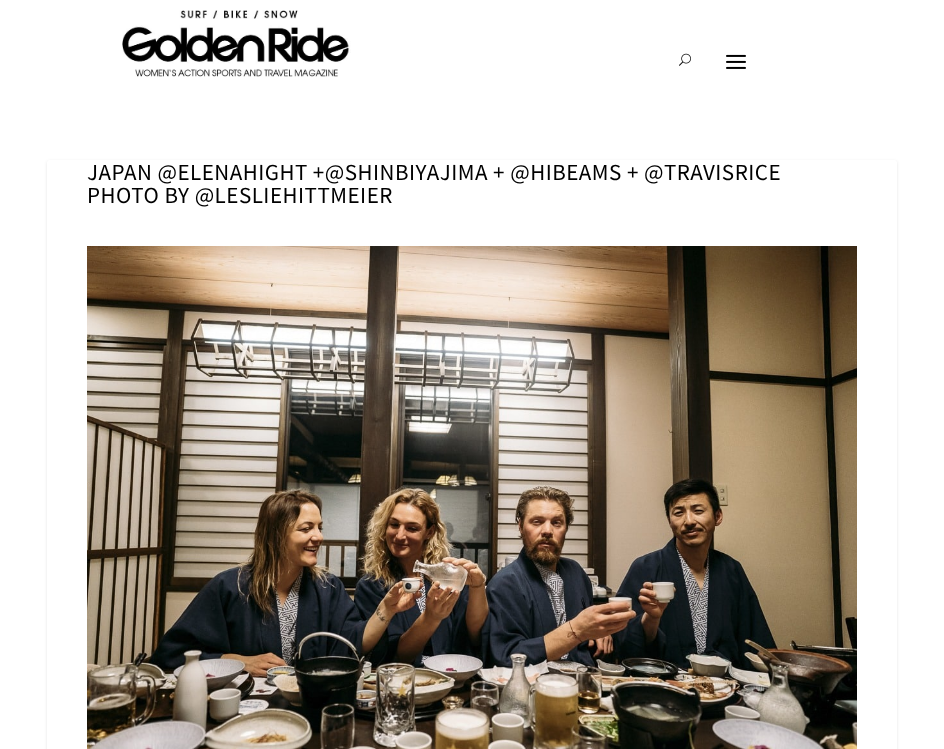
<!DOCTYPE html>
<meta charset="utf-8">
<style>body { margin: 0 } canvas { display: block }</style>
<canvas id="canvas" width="944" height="749"></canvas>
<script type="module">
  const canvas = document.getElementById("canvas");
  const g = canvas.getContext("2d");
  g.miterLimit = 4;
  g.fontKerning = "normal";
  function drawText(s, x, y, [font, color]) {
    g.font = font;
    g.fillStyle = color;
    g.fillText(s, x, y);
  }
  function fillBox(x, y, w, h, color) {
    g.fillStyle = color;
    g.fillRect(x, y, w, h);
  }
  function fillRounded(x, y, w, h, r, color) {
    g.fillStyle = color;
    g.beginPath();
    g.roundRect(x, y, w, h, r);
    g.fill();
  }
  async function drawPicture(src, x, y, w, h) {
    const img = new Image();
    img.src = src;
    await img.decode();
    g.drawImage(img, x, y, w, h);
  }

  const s1 = ["23px Source Sans Pro", "#000000"];

  fillBox(0, 0, 944, 749, "#FFFFFF");
  await drawPicture("pic1.png", 122, 10, 229, 67);
  await drawPicture("pic2.png", 679, 53, 12, 13);
  await drawPicture("pic3.png", 726, 54, 20, 15);
  g.fillStyle = "rgba(0, 0, 0, 0.1)";
  g.filter = "blur(1.5px)";
  g.beginPath();
  g.roundRect(47, 161, 850, 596, 3);
  g.fill();
  g.filter = "none";
  fillRounded(47, 160, 850, 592, 3, "#FFFFFF");
  g.letterSpacing = "0.5px";
  drawText("JAPAN @ELENAHIGHT +@SHINBIYAJIMA + @HIBEAMS + @TRAVISRICE", 87, 180, s1);
  drawText("PHOTO BY @LESLIEHITTMEIER", 87, 203, s1);
  await drawPicture("pic4.png", 87, 246, 770, 503);
</script>
